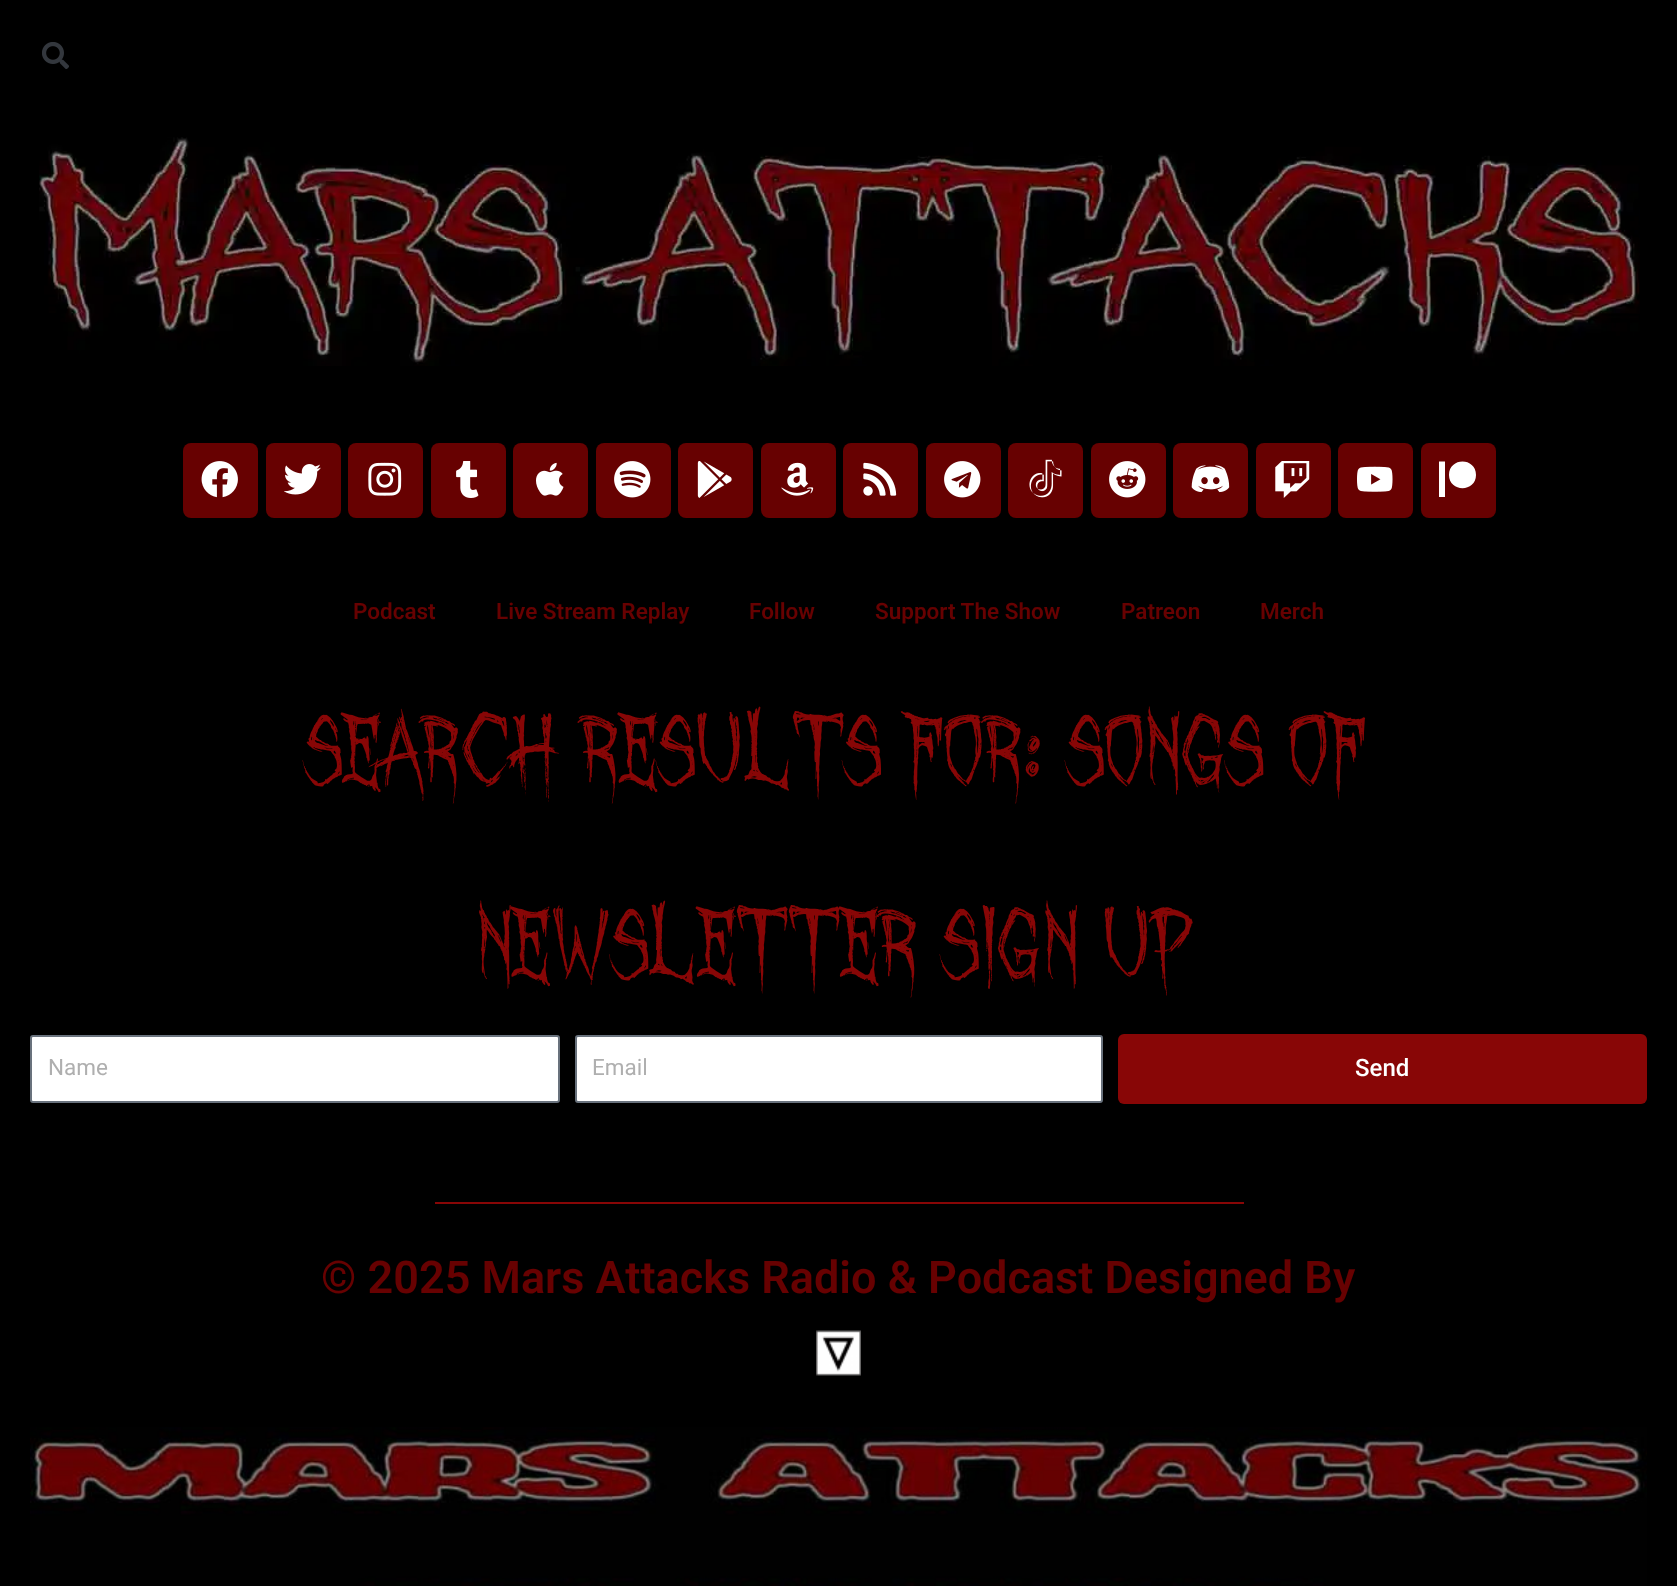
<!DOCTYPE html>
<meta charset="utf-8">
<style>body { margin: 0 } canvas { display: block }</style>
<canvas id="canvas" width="1677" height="1586"></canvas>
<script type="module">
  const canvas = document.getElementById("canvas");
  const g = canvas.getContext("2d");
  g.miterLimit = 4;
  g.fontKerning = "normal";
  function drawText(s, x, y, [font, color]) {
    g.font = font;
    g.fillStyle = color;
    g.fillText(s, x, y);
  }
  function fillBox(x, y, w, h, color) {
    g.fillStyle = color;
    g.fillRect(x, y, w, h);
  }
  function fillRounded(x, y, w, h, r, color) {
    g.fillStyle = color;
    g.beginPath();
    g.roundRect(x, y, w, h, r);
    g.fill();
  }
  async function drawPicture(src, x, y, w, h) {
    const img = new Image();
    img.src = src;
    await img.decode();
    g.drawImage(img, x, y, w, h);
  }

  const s1 = ["600 22.5px Roboto", "#670101"];
  const s2 = ["88.5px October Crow", "#880606"];
  const s3 = ["22.5px Roboto", "#AFAFAF"];
  const s4 = ["500 24px Roboto", "#FFFFFF"];
  const s5 = ["600 45px Roboto", "#670101"];

  fillBox(0, 0, 1677, 1586, "#000000");
  await drawPicture("pic1.png", 42, 42, 27, 27);
  await drawPicture("pic2.png", 39, 137, 1601, 229);
  fillRounded(183, 443, 75, 75, 8, "#670101");
  await drawPicture("pic3.png", 201, 461, 37, 37);
  fillRounded(266, 443, 75, 75, 8, "#670101");
  await drawPicture("pic4.png", 284, 464, 37, 31);
  fillRounded(348, 443, 75, 75, 8, "#670101");
  await drawPicture("pic5.png", 368, 462, 34, 34);
  fillRounded(431, 443, 75, 75, 8, "#670101");
  await drawPicture("pic6.png", 456, 461, 23, 37);
  fillRounded(513, 443, 75, 75, 8, "#670101");
  await drawPicture("pic7.png", 536, 462, 28, 34);
  fillRounded(596, 443, 75, 75, 8, "#670101");
  await drawPicture("pic8.png", 614, 461, 37, 37);
  fillRounded(678, 443, 75, 75, 8, "#670101");
  await drawPicture("pic9.png", 697, 461, 35, 37);
  fillRounded(761, 443, 75, 75, 8, "#670101");
  await drawPicture("pic10.png", 781, 462, 33, 34);
  fillRounded(843, 443, 75, 75, 8, "#670101");
  await drawPicture("pic11.png", 863, 462, 34, 34);
  fillRounded(926, 443, 75, 75, 8, "#670101");
  await drawPicture("pic12.png", 944, 461, 37, 37);
  fillRounded(1008, 443, 75, 75, 8, "#670101");
  await drawPicture("pic13.png", 1029, 459, 33, 39);
  fillRounded(1091, 443, 75, 75, 8, "#670101");
  await drawPicture("pic14.png", 1109, 461, 37, 37);
  fillRounded(1173, 443, 75, 75, 8, "#670101");
  await drawPicture("pic15.png", 1191, 465, 39, 28);
  fillRounded(1256, 443, 75, 75, 8, "#670101");
  await drawPicture("pic16.png", 1275, 461, 35, 37);
  fillRounded(1338, 443, 75, 75, 8, "#670101");
  await drawPicture("pic17.png", 1357, 466, 36, 26);
  fillRounded(1421, 443, 75, 75, 8, "#670101");
  g.save();
  g.beginPath();
  g.rect(1439, 461, 37, 37);
  g.clip();
  g.fillStyle = "#FFFFFF";
  g.beginPath();
  g.moveTo(1476, 475);
  g.bezierCurveTo(1476, 492.5, 1449, 492.5, 1449, 475);
  g.bezierCurveTo(1449, 457, 1476, 457, 1476, 475);
  g.closePath();
  g.moveTo(1438.5, 497);
  g.lineTo(1445, 497);
  g.lineTo(1445, 461.5);
  g.lineTo(1438.5, 461.5);
  g.closePath();
  g.fill();
  g.restore();
  drawText("Podcast", 353, 619, s1);
  drawText("Live Stream Replay", 496, 619, s1);
  drawText("Follow", 749, 619, s1);
  drawText("Support The Show", 875, 619, s1);
  drawText("Patreon", 1121, 619, s1);
  drawText("Merch", 1260, 619, s1);
  g.letterSpacing = "2.4px";
  drawText("Search Results for: songs of", 308, 778, s2);
  drawText("Newsletter Sign Up", 479, 972, s2);
  g.fillStyle = "#FFFFFF";
  g.beginPath();
  g.roundRect(31, 1036, 528, 66, 2);
  g.fill();
  g.strokeStyle = "#69727D";
  g.lineWidth = 2;
  g.stroke();
  g.letterSpacing = "0px";
  drawText("Name", 48, 1075, s3);
  g.fillStyle = "#FFFFFF";
  g.beginPath();
  g.roundRect(576, 1036, 526, 66, 2);
  g.fill();
  g.stroke();
  drawText("Email", 592, 1075, s3);
  fillRounded(1118, 1034, 529, 70, 6, "#880606");
  drawText("Send", 1355, 1076, s4);
  fillBox(435, 1202, 809, 2, "#880606");
  drawText("© 2025 Mars Attacks Radio & Podcast Designed By", 321, 1293, s5);
  await drawPicture("pic18.png", 816, 1330, 45, 46);
  await drawPicture("pic19.png", 30, 1427, 1617, 159);
</script>
